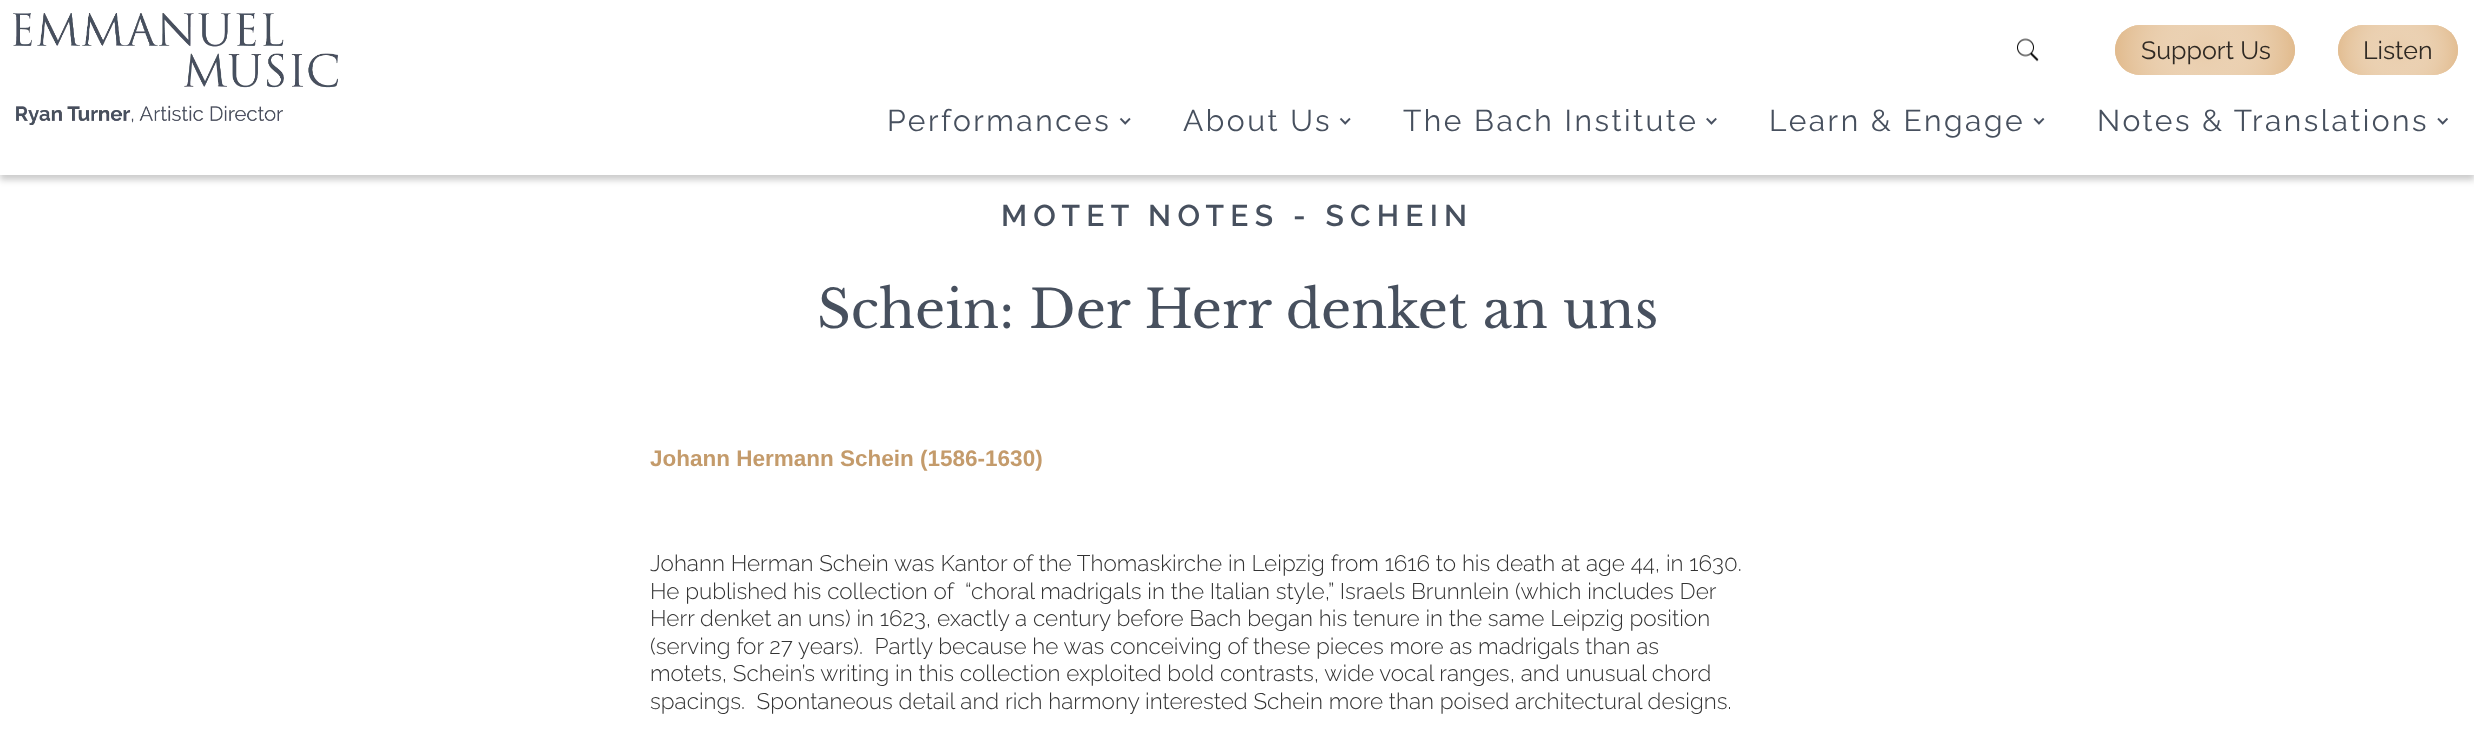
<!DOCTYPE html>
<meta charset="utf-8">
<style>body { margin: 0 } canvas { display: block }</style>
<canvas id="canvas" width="2474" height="742"></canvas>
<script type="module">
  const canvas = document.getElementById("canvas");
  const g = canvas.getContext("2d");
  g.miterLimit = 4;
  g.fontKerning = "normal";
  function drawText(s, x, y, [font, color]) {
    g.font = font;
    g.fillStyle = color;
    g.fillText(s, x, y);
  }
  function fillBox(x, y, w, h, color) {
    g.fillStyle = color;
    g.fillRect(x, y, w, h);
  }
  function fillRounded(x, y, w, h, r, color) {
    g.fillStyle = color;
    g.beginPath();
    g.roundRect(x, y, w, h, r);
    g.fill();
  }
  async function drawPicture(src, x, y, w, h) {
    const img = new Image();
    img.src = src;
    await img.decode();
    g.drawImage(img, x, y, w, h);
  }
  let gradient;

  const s1 = ["25px Raleway", "#2F2923"];
  const s2 = ["30px Raleway", "#47505E"];
  const s3 = ["600 30px Raleway", "#47505E"];
  const s4 = ["52.5px Libre Baskerville", "#47505E"];
  const s5 = ["bold 22.5px Liberation Sans", "#C49B6B"];
  const s6 = ["300 22.5px Raleway", "#333333"];

  fillBox(0, 0, 2474, 742, "#FFFFFF");
  g.fillStyle = "rgba(0, 0, 0, 0.2)";
  g.filter = "blur(3px)";
  g.beginPath();
  g.rect(0, 5, 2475, 175);
  g.fill();
  g.filter = "none";
  fillBox(0, 0, 2474, 175, "#FFFFFF");
  await drawPicture("pic1.png", 13, 13, 325, 112);
  await drawPicture("pic2.png", 2017, 38, 22, 24);
  fillRounded(2115, 25, 180, 50, 25, "#E0B889");
  gradient = g.createRadialGradient(2205, 50, 0, 2205, 50, 93);
  gradient.addColorStop(0, "rgba(255, 255, 255, 0.28)");
  gradient.addColorStop(1, "#E0B889");
  g.fillStyle = gradient;
  g.beginPath();
  g.roundRect(2115, 25, 180, 50, 25);
  g.fill();
  drawText("Support Us", 2141, 59, s1);
  fillRounded(2338, 25, 120, 50, 25, "#E0B889");
  gradient = g.createRadialGradient(2398, 50, 0, 2398, 50, 65);
  gradient.addColorStop(0, "rgba(255, 255, 255, 0.28)");
  gradient.addColorStop(1, "#E0B889");
  g.fillStyle = gradient;
  g.beginPath();
  g.roundRect(2338, 25, 120, 50, 25);
  g.fill();
  drawText("Listen", 2363, 59, s1);
  g.letterSpacing = "2.5px";
  drawText("Performances", 887, 131, s2);
  await drawPicture("pic3.png", 1119, 117, 12, 8);
  drawText("About Us", 1183, 131, s2);
  await drawPicture("pic3.png", 1339, 117, 12, 8);
  drawText("The Bach Institute", 1403, 131, s2);
  await drawPicture("pic4.png", 1706, 117, 11, 8);
  drawText("Learn & Engage", 1769, 131, s2);
  await drawPicture("pic5.png", 2033, 117, 12, 8);
  drawText("Notes & Translations", 2097, 131, s2);
  await drawPicture("pic6.png", 2437, 117, 11, 8);
  g.letterSpacing = "6.25px";
  drawText("MOTET NOTES - SCHEIN", 1001, 226, s3);
  g.letterSpacing = "0px";
  drawText("Schein: Der Herr denket an uns", 817, 328, s4);
  drawText("Johann Hermann Schein (1586-1630)", 650, 466, s5);
  drawText("Johann Herman Schein was Kantor of the Thomaskirche in Leipzig from 1616 to his death at age 44, in 1630.", 650, 571, s6);
  drawText("He published his collection of  “choral madrigals in the Italian style,” Israels Brunnlein (which includes Der", 650, 599, s6);
  drawText("Herr denket an uns) in 1623, exactly a century before Bach began his tenure in the same Leipzig position", 650, 626, s6);
  drawText("(serving for 27 years).  Partly because he was conceiving of these pieces more as madrigals than as", 650, 654, s6);
  drawText("motets, Schein’s writing in this collection exploited bold contrasts, wide vocal ranges, and unusual chord", 650, 681, s6);
  drawText("spacings.  Spontaneous detail and rich harmony interested Schein more than poised architectural designs.", 650, 709, s6);
</script>
